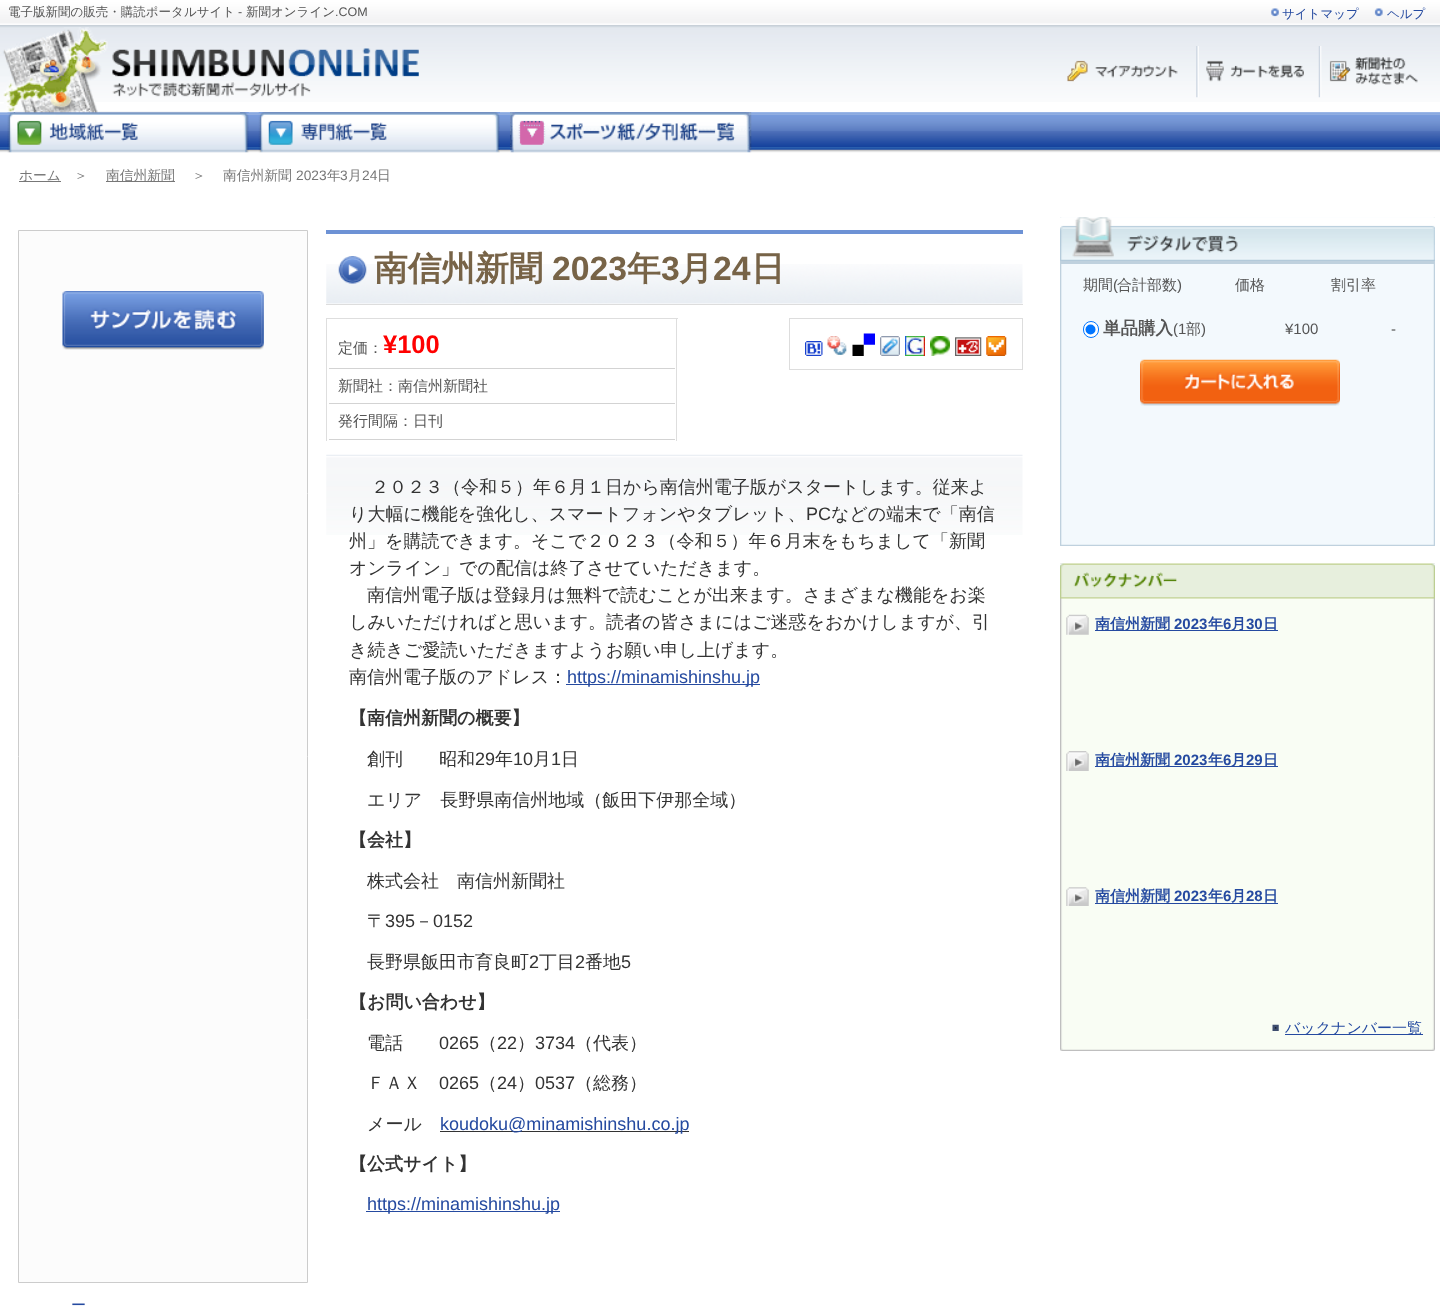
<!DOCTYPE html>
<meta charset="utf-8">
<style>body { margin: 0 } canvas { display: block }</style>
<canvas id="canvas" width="1440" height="1306"></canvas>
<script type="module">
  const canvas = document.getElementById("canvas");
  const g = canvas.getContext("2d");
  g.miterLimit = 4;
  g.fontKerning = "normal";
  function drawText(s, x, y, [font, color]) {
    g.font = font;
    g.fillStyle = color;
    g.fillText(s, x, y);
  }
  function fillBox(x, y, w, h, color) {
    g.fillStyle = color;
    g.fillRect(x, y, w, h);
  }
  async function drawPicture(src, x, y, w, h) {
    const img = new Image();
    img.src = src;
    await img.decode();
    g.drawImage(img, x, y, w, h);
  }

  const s1 = ["500 12.5px WenQuanYi Zen Hei", "#555555"];
  const s2 = ["12.5px Liberation Sans", "#555555"];
  const s3 = ["500 12.5px WenQuanYi Zen Hei", "#254AA0"];
  const s4 = ["500 13.75px WenQuanYi Zen Hei", "#777777"];
  const s5 = ["13.75px Liberation Sans", "#777777"];
  const s6 = ["bold 33.75px WenQuanYi Zen Hei", "#776347"];
  const s7 = ["bold 33.75px Liberation Sans", "#776347"];
  const s8 = ["500 15px WenQuanYi Zen Hei", "#555555"];
  const s9 = ["bold 25.5px Liberation Sans", "#FF0000"];
  const s10 = ["500 18px WenQuanYi Zen Hei", "#333333"];
  const s11 = ["18px Liberation Sans", "#333333"];
  const s12 = ["18px Liberation Sans", "#254AA0"];
  const s13 = ["bold 18px WenQuanYi Zen Hei", "#333333"];
  const s14 = ["500 15px WenQuanYi Zen Hei", "#254AA0"];
  const s15 = ["15px Liberation Sans", "#555555"];
  const s16 = ["bold 17.5px WenQuanYi Zen Hei", "#555555"];
  const s17 = ["bold 15px WenQuanYi Zen Hei", "#254AA0"];
  const s18 = ["bold 15px Liberation Sans", "#254AA0"];

  fillBox(0, 0, 1440, 1306, "#FFFFFF");
  await drawPicture("pic1.png", 0, 24, 1440, 78);
  await drawPicture("pic2.png", 0, 0, 1440, 25);
  drawText("電子版新聞の販売・購読ポータルサイト", 8, 16, s1);
  drawText("-", 238, 16, s2);
  drawText("新聞オンライン", 246, 16, s1);
  drawText(".COM", 335, 16, s2);
  await drawPicture("pic3.png", 1270, 8, 9, 9);
  drawText("サイトマップ", 1282, 18, s3);
  await drawPicture("pic4.png", 1374, 8, 9, 9);
  drawText("ヘルプ", 1387, 18, s3);
  await drawPicture("pic9.png", 0, 112, 1440, 41);
  await drawPicture("pic10.png", 7, 112, 242, 41);
  await drawPicture("pic11.png", 258, 112, 242, 41);
  await drawPicture("pic5.png", 0, 27, 419, 86);
  await drawPicture("pic6.png", 1067, 60, 111, 22);
  await drawPicture("pic7.png", 1196, 46, 108, 52);
  await drawPicture("pic8.png", 1318, 46, 100, 52);
  await drawPicture("pic12.png", 510, 112, 242, 41);
  fillBox(19, 181, 42, 1, "#777777");
  drawText("ホーム", 19, 180, s4);
  drawText("＞", 74, 180, s4);
  fillBox(106, 181, 69, 1, "#777777");
  drawText("南信州新聞", 106, 180, s4);
  drawText("＞", 192, 180, s4);
  drawText("南信州新聞", 223, 180, s4);
  drawText("2023", 296, 180, s5);
  drawText("年", 327, 180, s4);
  drawText("3", 340, 180, s5);
  drawText("月", 348, 180, s4);
  drawText("24", 362, 180, s5);
  drawText("日", 377, 180, s4);
  g.fillStyle = "#FCFCFC";
  g.beginPath();
  g.rect(18.5, 230.5, 289, 1052);
  g.fill();
  g.strokeStyle = "#CCCCCC";
  g.stroke();
  await drawPicture("pic13.png", 62, 291, 202, 59);
  await drawPicture("pic14.png", 326, 264, 697, 40);
  fillBox(326, 230, 697, 4, "#6D92D5");
  fillBox(326, 304, 697, 1, "#DDDDDD");
  await drawPicture("pic15.png", 338, 256, 29, 28);
  drawText("南信州新聞", 374, 280, s6);
  drawText("2023", 552, 280, s7);
  drawText("年", 627, 280, s6);
  drawText("3", 661, 280, s7);
  drawText("月", 679, 280, s6);
  drawText("24", 713, 280, s7);
  drawText("日", 751, 280, s6);
  fillBox(326, 318, 352, 1, "#DEDEDE");
  fillBox(676, 318, 1, 123, "#DEDEDE");
  fillBox(326, 318, 1, 123, "#DEDEDE");
  fillBox(329, 368, 346, 1, "#D3D3D3");
  drawText("定価：", 338, 353, s8);
  drawText("¥100", 383, 353, s9);
  fillBox(329, 403, 346, 1, "#D3D3D3");
  drawText("新聞社：南信州新聞社", 338, 391, s8);
  fillBox(329, 439, 346, 1, "#D3D3D3");
  drawText("発行間隔：日刊", 338, 426, s8);
  g.strokeStyle = "#DDDDDD";
  g.strokeRect(789.5, 318.5, 233, 51);
  await drawPicture("pic16.png", 805, 341, 18, 15);
  await drawPicture("pic17.png", 827, 336, 20, 19);
  await drawPicture("pic18.png", 852, 333, 23, 23);
  await drawPicture("pic19.png", 880, 336, 20, 20);
  await drawPicture("pic20.png", 905, 336, 20, 20);
  await drawPicture("pic21.png", 930, 336, 20, 20);
  await drawPicture("pic22.png", 955, 337, 27, 19);
  await drawPicture("pic23.png", 986, 336, 21, 20);
  await drawPicture("pic24.png", 326, 454, 697, 81);
  drawText("２０２３（令和５）年６月１日から南信州電子版がスタートします。従来よ", 371, 493, s10);
  drawText("り大幅に機能を強化し、スマートフォンやタブレット、", 349, 520, s10);
  drawText("PC", 806, 520, s11);
  drawText("などの端末で「南信", 831, 520, s10);
  drawText("州」を購読できます。そこで２０２３（令和５）年６月末をもちまして「新聞", 349, 547, s10);
  drawText("オンライン」での配信は終了させていただきます。", 349, 574, s10);
  drawText("南信州電子版は登録月は無料で読むことが出来ます。さまざまな機能をお楽", 367, 601, s10);
  drawText("しみいただければと思います。読者の皆さまにはご迷惑をおかけしますが、引", 349, 628, s10);
  drawText("き続きご愛読いただきますようお願い申し上げます。", 349, 656, s10);
  drawText("南信州電子版のアドレス：", 349, 683, s10);
  fillBox(566, 684, 194, 1, "#254AA0");
  drawText("https://minamishinshu.jp", 567, 683, s12);
  drawText("【南信州新聞の概要】", 349, 724, s13);
  drawText("創刊　　昭和", 367, 765, s10);
  drawText("29", 475, 765, s11);
  drawText("年", 495, 765, s10);
  drawText("10", 513, 765, s11);
  drawText("月", 533, 765, s10);
  drawText("1", 551, 765, s11);
  drawText("日", 561, 765, s10);
  drawText("エリア　長野県南信州地域（飯田下伊那全域）", 367, 806, s10);
  drawText("【会社】", 349, 846, s13);
  drawText("株式会社　南信州新聞社", 367, 887, s10);
  drawText("〒", 367, 927, s10);
  drawText("395", 385, 927, s11);
  drawText("－", 415, 927, s10);
  drawText("0152", 433, 927, s11);
  drawText("長野県飯田市育良町", 367, 968, s10);
  drawText("2", 529, 968, s11);
  drawText("丁目", 539, 968, s10);
  drawText("2", 575, 968, s11);
  drawText("番地", 585, 968, s10);
  drawText("5", 621, 968, s11);
  drawText("【お問い合わせ】", 349, 1008, s13);
  drawText("電話", 367, 1049, s10);
  drawText("0265", 439, 1049, s11);
  drawText("（", 479, 1049, s10);
  drawText("22", 497, 1049, s11);
  drawText("）", 517, 1049, s10);
  drawText("3734", 535, 1049, s11);
  drawText("（代表）", 575, 1049, s10);
  drawText("ＦＡＸ", 367, 1089, s10);
  drawText("0265", 439, 1089, s11);
  drawText("（", 479, 1089, s10);
  drawText("24", 497, 1089, s11);
  drawText("）", 517, 1089, s10);
  drawText("0537", 535, 1089, s11);
  drawText("（総務）", 575, 1089, s10);
  drawText("メール", 367, 1130, s10);
  fillBox(440, 1131, 249, 1, "#333333");
  drawText("koudoku@minamishinshu.co.jp", 440, 1130, s12);
  drawText("【公式サイト】", 349, 1170, s13);
  fillBox(366, 1211, 194, 1, "#254AA0");
  drawText("https://minamishinshu.jp", 367, 1210, s12);
  drawText("ー", 71, 1310, s14);
  await drawPicture("pic25.png", 1060, 217, 375, 329);
  fillBox(1060, 261, 375, 3, "#BFD1DE");
  await drawPicture("pic26.png", 1060, 217, 375, 44);
  drawText("期間", 1083, 290, s8);
  drawText("(", 1113, 290, s15);
  drawText("合計部数", 1117, 290, s8);
  drawText(")", 1177, 290, s15);
  drawText("価格", 1235, 290, s8);
  drawText("割引率", 1331, 290, s8);
  g.fillStyle = "#FFFFFF";
  g.beginPath();
  g.roundRect(1083.5, 321.5, 15, 16, 7.5);
  g.fill();
  g.strokeStyle = "#0075FF";
  g.stroke();
  g.fillStyle = "#0075FF";
  g.beginPath();
  g.arc(1090.5, 329.5, 5, 0, Math.PI * 2);
  g.fill();
  drawText("単品購入", 1103, 334, s16);
  drawText("(1", 1173, 334, s15);
  drawText("部", 1186, 334, s8);
  drawText(")", 1201, 334, s15);
  drawText("¥100", 1285, 334, s15);
  drawText("-", 1391, 334, s15);
  await drawPicture("pic27.png", 1140, 359, 200, 47);
  await drawPicture("pic28.png", 1060, 563, 375, 488);
  await drawPicture("pic29.png", 1060, 563, 375, 36);
  await drawPicture("pic30.png", 1066, 614, 23, 21);
  fillBox(1095, 630, 183, 1, "#254AA0");
  drawText("南信州新聞", 1095, 629, s17);
  drawText("2023", 1174, 629, s18);
  drawText("年", 1208, 629, s17);
  drawText("6", 1223, 629, s18);
  drawText("月", 1231, 629, s17);
  drawText("30", 1246, 629, s18);
  drawText("日", 1263, 629, s17);
  await drawPicture("pic31.png", 1066, 751, 23, 20);
  fillBox(1095, 766, 183, 1, "#254AA0");
  drawText("南信州新聞", 1095, 765, s17);
  drawText("2023", 1174, 765, s18);
  drawText("年", 1208, 765, s17);
  drawText("6", 1223, 765, s18);
  drawText("月", 1231, 765, s17);
  drawText("29", 1246, 765, s18);
  drawText("日", 1263, 765, s17);
  await drawPicture("pic32.png", 1066, 887, 23, 19);
  drawText("南信州新聞", 1095, 901, s17);
  drawText("2023", 1174, 901, s18);
  fillBox(1095, 903, 183, 1, "#254AA0");
  drawText("年", 1208, 901, s17);
  drawText("6", 1223, 901, s18);
  drawText("月", 1231, 901, s17);
  drawText("28", 1246, 901, s18);
  drawText("日", 1263, 901, s17);
  await drawPicture("pic33.png", 1272, 1024, 7, 7);
  fillBox(1285, 1034, 138, 1, "#254AA0");
  drawText("バックナンバー一覧", 1285, 1033, s14);
</script>
